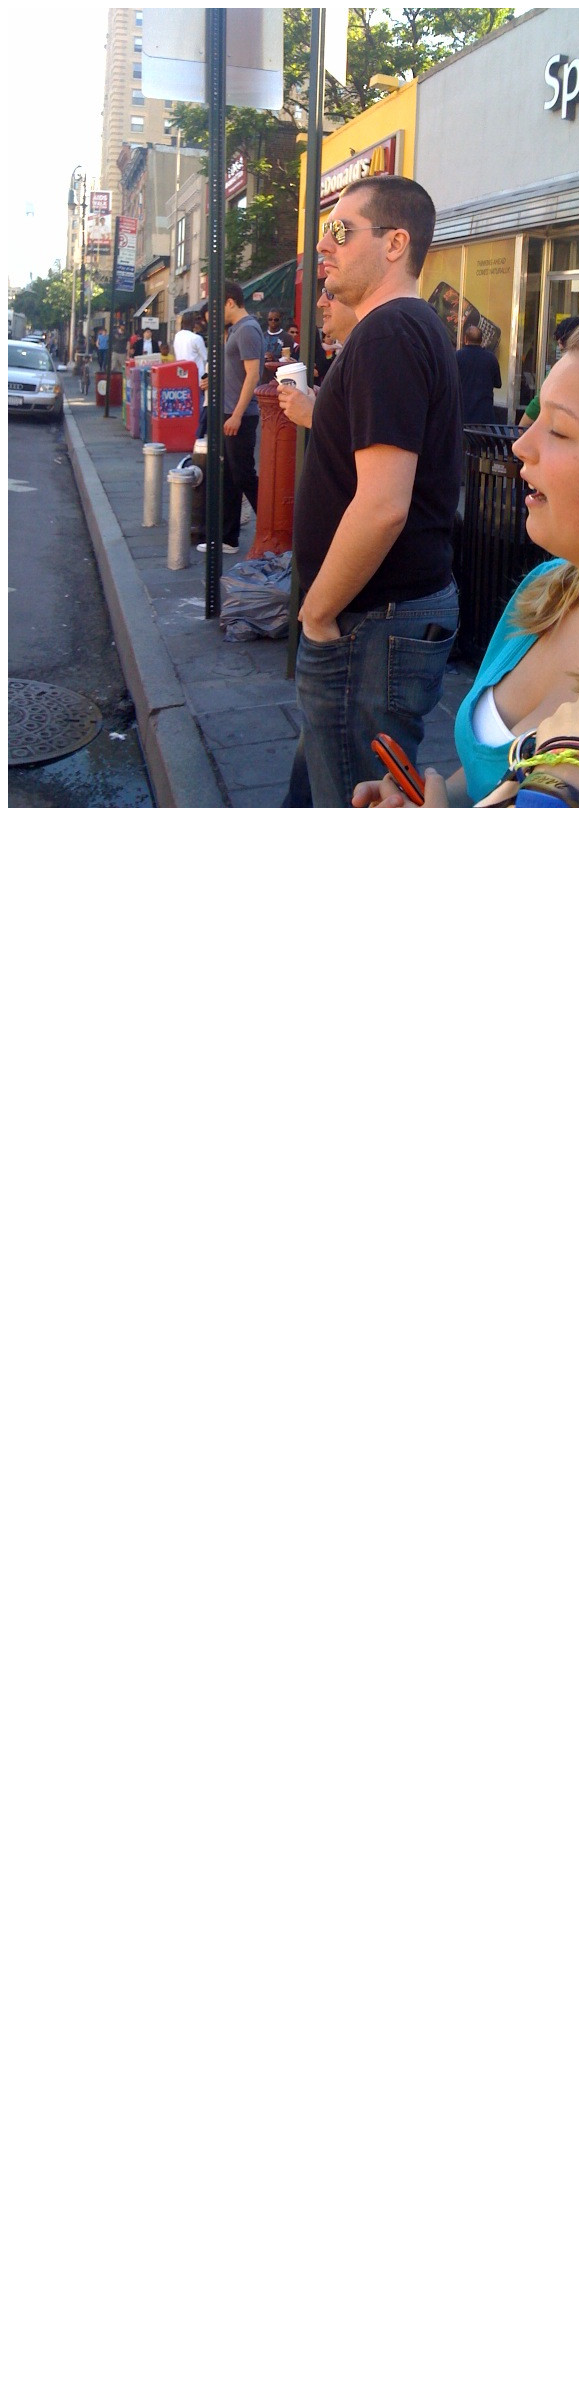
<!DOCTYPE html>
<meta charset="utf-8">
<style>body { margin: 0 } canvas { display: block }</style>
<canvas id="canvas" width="579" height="2404"></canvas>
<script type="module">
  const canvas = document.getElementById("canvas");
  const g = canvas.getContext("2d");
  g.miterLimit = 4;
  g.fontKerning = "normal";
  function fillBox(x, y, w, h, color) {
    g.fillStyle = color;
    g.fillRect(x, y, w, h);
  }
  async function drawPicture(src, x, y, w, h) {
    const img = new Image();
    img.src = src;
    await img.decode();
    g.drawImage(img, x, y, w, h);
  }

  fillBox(0, 0, 579, 2404, "#FFFFFF");
  await drawPicture("pic1.png", 8, 8, 571, 800);
</script>
